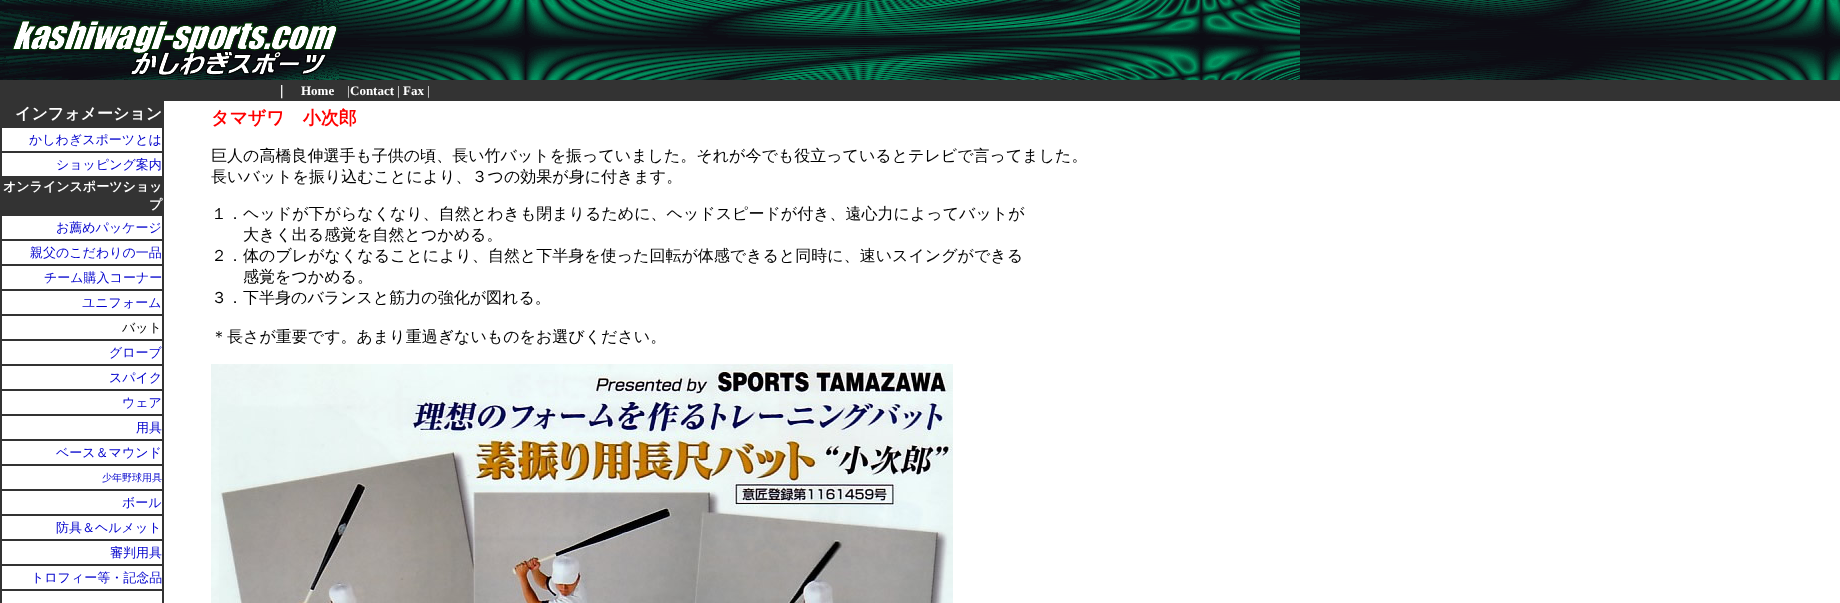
<!DOCTYPE html>
<meta charset="utf-8">
<style>body { margin: 0 } canvas { display: block }</style>
<canvas id="canvas" width="1840" height="603"></canvas>
<script type="module">
  const canvas = document.getElementById("canvas");
  const g = canvas.getContext("2d");
  g.miterLimit = 4;
  g.fontKerning = "normal";
  function drawText(s, x, y, [font, color]) {
    g.font = font;
    g.fillStyle = color;
    g.fillText(s, x, y);
  }
  function fillBox(x, y, w, h, color) {
    g.fillStyle = color;
    g.fillRect(x, y, w, h);
  }
  async function drawPicture(src, x, y, w, h) {
    const img = new Image();
    img.src = src;
    await img.decode();
    g.drawImage(img, x, y, w, h);
  }

  const s1 = ["bold 13px WenQuanYi Zen Hei", "#FFFFFF"];
  const s2 = ["bold 13px Liberation Serif", "#FFFFFF"];
  const s3 = ["bold 13px Liberation Serif", "#CCCCCC"];
  const s4 = ["bold 16px WenQuanYi Zen Hei", "#FFFFFF"];
  const s5 = ["500 13px WenQuanYi Zen Hei", "#0000CC"];
  const s6 = ["500 13px WenQuanYi Zen Hei", "#000000"];
  const s7 = ["500 10px WenQuanYi Zen Hei", "#0000CC"];
  const s8 = ["bold 18px WenQuanYi Zen Hei", "#FF0000"];
  const s9 = ["500 16px WenQuanYi Zen Hei", "#000000"];

  fillBox(0, 0, 1840, 603, "#FFFFFF");
  await drawPicture("pic1.png", 0, 0, 1840, 80);
  await drawPicture("pic2.png", 0, 0, 339, 80);
  fillBox(0, 80, 1840, 21, "#333333");
  drawText("｜", 275, 95, s1);
  drawText("Home", 301, 95, s2);
  drawText("|", 347, 95, s3);
  drawText("Contact", 350, 95, s2);
  drawText("|", 397, 95, s3);
  drawText("Fax", 403, 95, s2);
  drawText("|", 427, 95, s3);
  g.strokeStyle = "#333333";
  g.strokeRect(0.5, 101.5, 163, 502);
  fillBox(1, 102, 162, 25, "#333333");
  drawText("インフォメーション", 15, 119, s4);
  g.strokeRect(1.5, 127.5, 161, 24);
  drawText("かしわぎスポーツとは", 29, 144, s5);
  g.strokeRect(1.5, 152.5, 161, 24);
  drawText("ショッピング案内", 56, 169, s5);
  fillBox(1, 177, 162, 38, "#333333");
  drawText("オンラインスポーツショッ", 3, 191, s1);
  drawText("プ", 149, 209, s1);
  g.strokeRect(1.5, 215.5, 161, 24);
  drawText("お薦めパッケージ", 56, 232, s5);
  g.strokeRect(1.5, 240.5, 161, 24);
  drawText("親父のこだわりの一品", 30, 257, s5);
  g.strokeRect(1.5, 265.5, 161, 24);
  drawText("チーム購入コーナー", 44, 282, s5);
  g.strokeRect(1.5, 290.5, 161, 24);
  drawText("ユニフォーム", 82, 307, s5);
  g.strokeRect(1.5, 315.5, 161, 24);
  drawText("バット", 122, 332, s6);
  g.strokeRect(1.5, 340.5, 161, 24);
  drawText("グローブ", 109, 357, s5);
  g.strokeRect(1.5, 365.5, 161, 24);
  drawText("スパイク", 109, 382, s5);
  g.strokeRect(1.5, 390.5, 161, 24);
  drawText("ウェア", 122, 407, s5);
  g.strokeRect(1.5, 415.5, 161, 24);
  drawText("用具", 136, 432, s5);
  g.strokeRect(1.5, 440.5, 161, 24);
  drawText("ベース＆マウンド", 56, 457, s5);
  g.strokeRect(1.5, 465.5, 161, 24);
  drawText("少年野球用具", 102, 481, s7);
  g.strokeRect(1.5, 490.5, 161, 24);
  drawText("ボール", 122, 507, s5);
  g.strokeRect(1.5, 515.5, 161, 24);
  drawText("防具＆ヘルメット", 56, 532, s5);
  g.strokeRect(1.5, 540.5, 161, 24);
  drawText("審判用具", 110, 557, s5);
  g.strokeRect(1.5, 565.5, 161, 24);
  drawText("トロフィー等・記念品", 31, 582, s5);
  g.strokeRect(1.5, 590.5, 161, 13);
  drawText("タマザワ　小次郎", 211, 124, s8);
  drawText("巨人の高橋良伸選手も子供の頃、長い竹バットを振っていました。それが今でも役立っているとテレビで言ってました。", 211, 161, s9);
  drawText("長いバットを振り込むことにより、３つの効果が身に付きます。", 211, 182, s9);
  drawText("１．ヘッドが下がらなくなり、自然とわきも閉まりるために、ヘッドスピードが付き、遠心力によってバットが", 211, 219, s9);
  drawText("大きく出る感覚を自然とつかめる。", 243, 240, s9);
  drawText("２．体のブレがなくなることにより、自然と下半身を使った回転が体感できると同時に、速いスイングができる", 211, 261, s9);
  drawText("感覚をつかめる。", 243, 282, s9);
  drawText("３．下半身のバランスと筋力の強化が図れる。", 211, 303, s9);
  drawText("＊長さが重要です。あまり重過ぎないものをお選びください。", 211, 342, s9);
  await drawPicture("pic3.png", 211, 364, 742, 239);
</script>
